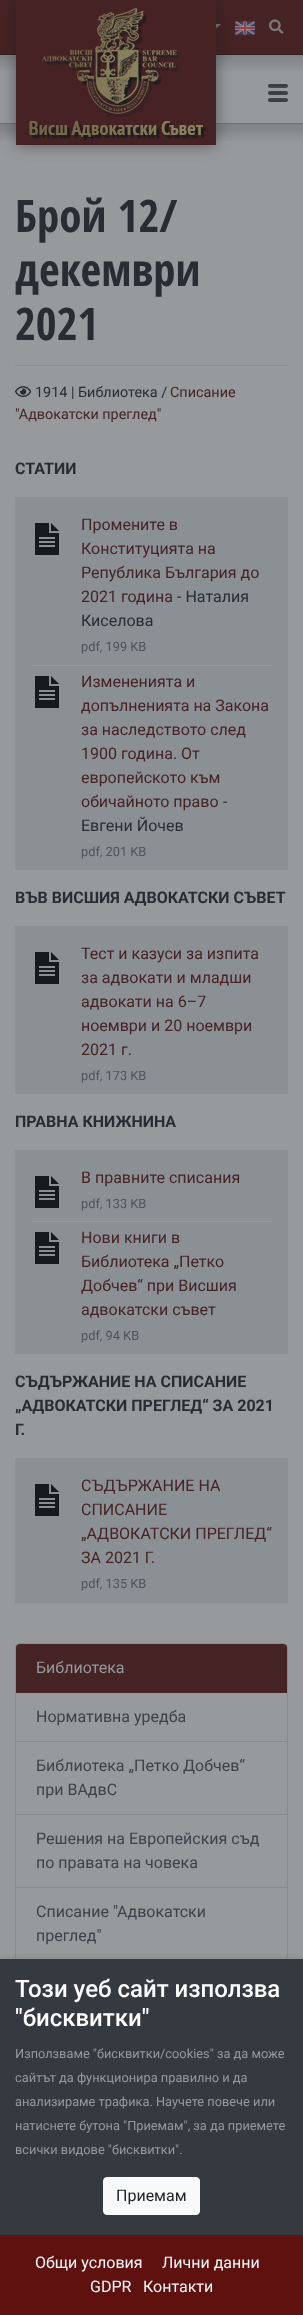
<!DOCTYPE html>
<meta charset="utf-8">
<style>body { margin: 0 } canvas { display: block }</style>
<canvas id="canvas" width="303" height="2315"></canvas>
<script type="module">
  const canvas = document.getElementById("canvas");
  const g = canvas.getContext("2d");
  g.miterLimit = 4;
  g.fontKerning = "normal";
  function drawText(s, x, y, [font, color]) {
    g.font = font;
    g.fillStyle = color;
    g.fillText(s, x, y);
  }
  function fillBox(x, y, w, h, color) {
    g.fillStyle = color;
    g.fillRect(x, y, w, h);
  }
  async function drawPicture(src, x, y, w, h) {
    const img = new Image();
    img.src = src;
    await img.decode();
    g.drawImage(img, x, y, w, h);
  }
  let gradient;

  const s1 = ["bold 45px Open Sans Condensed", "#272D32"];
  const s2 = ["14.4px Roboto", "#272D32"];
  const s3 = ["14.4px Roboto", "#462325"];
  const s4 = ["bold 16px Roboto", "#272D32"];
  const s5 = ["16px Roboto", "#462325"];
  const s6 = ["16px Roboto", "#272D32"];
  const s7 = ["12.8px Roboto", "#4D555C"];
  const s8 = ["16px Roboto", "#969A9D"];
  const s9 = ["16px Roboto", "#3B4249"];
  const s10 = ["500 24px Roboto", "#FFFFFF"];
  const s11 = ["12.8px Roboto", "#969A9D"];
  const s12 = ["16px Roboto", "#212529"];
  const s13 = ["16px Roboto", "#F8F9FA"];

  fillBox(0, 0, 303, 2315, "#969A9D");
  fillBox(0, 123, 303, 1, "#868B90");
  fillBox(0, 0, 303, 54, "#462325");
  fillBox(0, 54, 303, 1, "#402224");
  await drawPicture("pic2.png", 235, 21, 20, 14);
  g.fillStyle = "#7E7679";
  g.beginPath();
  g.moveTo(213, 24);
  g.lineTo(221, 24);
  g.lineTo(217, 28);
  g.closePath();
  g.fill();
  gradient = g.createLinearGradient(152, 54, 152, 74);
  gradient.addColorStop(0, "rgba(23, 26, 29, 0.2)");
  gradient.addColorStop(1, "rgba(23, 26, 29, 0)");
  g.fillStyle = gradient;
  g.fillRect(0, 54, 303, 18);
  gradient = g.createLinearGradient(152, 123, 152, 143);
  gradient.addColorStop(0, "rgba(23, 26, 29, 0.2)");
  gradient.addColorStop(1, "rgba(23, 26, 29, 0)");
  g.fillStyle = gradient;
  g.fillRect(0, 123, 303, 18);
  g.save();
  g.beginPath();
  g.moveTo(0, 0);
  g.lineTo(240, 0);
  g.lineTo(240, 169);
  g.lineTo(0, 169);
  g.closePath();
  g.moveTo(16, 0);
  g.lineTo(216, 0);
  g.lineTo(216, 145);
  g.lineTo(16, 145);
  g.closePath();
  g.clip("evenodd");
  g.fillStyle = "rgba(23, 26, 29, 0.5)";
  g.filter = "blur(7.5px)";
  g.beginPath();
  g.rect(16, 0, 200, 145);
  g.fill();
  g.filter = "none";
  g.restore();
  await drawPicture("pic1.png", 16, 8, 200, 137);
  await drawPicture("pic3.png", 269, 19, 15, 15);
  await drawPicture("pic4.png", 268, 84, 20, 18);
  drawText("Брой 12/", 15, 232, s1);
  drawText("декември", 15, 286, s1);
  drawText("2021", 15, 340, s1);
  fillBox(15, 365, 273, 1, "#8A8D90");
  await drawPicture("pic5.png", 15, 386, 17, 11);
  drawText("1914 | Библиотека /", 35, 397, s2);
  drawText("Списание", 170, 397, s3);
  drawText("\"Адвокатски преглед\"", 15, 419, s3);
  drawText("СТАТИИ", 15, 474, s4);
  fillBox(15, 497, 273, 373, "#8B9095");
  await drawPicture("pic6.png", 35, 523, 24, 32);
  drawText("Промените в", 81, 530, s5);
  drawText("Конституцията на", 81, 554, s5);
  drawText("Република България до", 81, 578, s5);
  drawText("2021 година", 81, 602, s5);
  drawText("- Наталия", 177, 602, s6);
  drawText("Киселова", 81, 626, s6);
  drawText("pdf, 199 KB", 81, 651, s7);
  fillBox(31, 665, 241, 1, "#969A9D");
  await drawPicture("pic6.png", 35, 676, 24, 32);
  drawText("Измененията и", 81, 687, s5);
  drawText("допълненията на Закона", 81, 711, s5);
  drawText("за наследството след", 81, 735, s5);
  drawText("1900 година. От", 81, 759, s5);
  drawText("европейското към", 81, 783, s5);
  drawText("обичайното право", 81, 807, s5);
  drawText("-", 223, 807, s6);
  drawText("Евгени Йочев", 81, 831, s6);
  drawText("pdf, 201 KB", 81, 856, s7);
  drawText("ВЪВ ВИСШИЯ АДВОКАТСКИ СЪВЕТ", 15, 903, s4);
  fillBox(15, 926, 273, 168, "#8B9095");
  await drawPicture("pic6.png", 35, 952, 24, 32);
  drawText("Тест и казуси за изпита", 81, 959, s5);
  drawText("за адвокати и младши", 81, 983, s5);
  drawText("адвокати на 6–7", 81, 1007, s5);
  drawText("ноември и 20 ноември", 81, 1031, s5);
  drawText("2021 г.", 81, 1055, s5);
  drawText("pdf, 173 KB", 81, 1080, s7);
  drawText("ПРАВНА КНИЖНИНА", 15, 1127, s4);
  fillBox(15, 1150, 273, 204, "#8B9095");
  await drawPicture("pic6.png", 35, 1176, 24, 32);
  drawText("В правните списания", 81, 1183, s5);
  drawText("pdf, 133 KB", 81, 1208, s7);
  fillBox(31, 1221, 241, 1, "#969A9D");
  await drawPicture("pic6.png", 35, 1232, 24, 32);
  drawText("Нови книги в", 81, 1243, s5);
  drawText("Библиотека „Петко", 81, 1267, s5);
  drawText("Добчев“ при Висшия", 81, 1291, s5);
  drawText("адвокатски съвет", 81, 1315, s5);
  drawText("pdf, 94 KB", 81, 1340, s7);
  drawText("СЪДЪРЖАНИЕ НА СПИСАНИЕ", 15, 1387, s4);
  drawText("„АДВОКАТСКИ ПРЕГЛЕД“ ЗА 2021", 15, 1411, s4);
  drawText("Г.", 15, 1435, s4);
  fillBox(15, 1458, 273, 145, "#8B9095");
  await drawPicture("pic6.png", 35, 1484, 24, 32);
  drawText("СЪДЪРЖАНИЕ НА", 81, 1491, s5);
  drawText("СПИСАНИЕ", 81, 1515, s5);
  drawText("„АДВОКАТСКИ ПРЕГЛЕД“", 81, 1539, s5);
  drawText("ЗА 2021 Г.", 81, 1563, s5);
  drawText("pdf, 135 KB", 81, 1588, s7);
  g.beginPath();
  g.roundRect(15.5, 1643.5, 272, 317, 3.5);
  g.strokeStyle = "#868A8D";
  g.stroke();
  g.fillStyle = "#462325";
  g.beginPath();
  g.roundRect(16, 1644, 271, 49, [4, 4, 0, 0]);
  g.fill();
  drawText("Библиотека", 36, 1673, s8);
  drawText("Нормативна уредба", 36, 1722, s9);
  fillBox(16, 1741, 271, 1, "#868A8D");
  drawText("Библиотека „Петко Добчев“", 36, 1771, s9);
  drawText("при ВАдвС", 36, 1795, s9);
  fillBox(16, 1814, 271, 1, "#868A8D");
  drawText("Решения на Европейския съд", 36, 1844, s9);
  drawText("по правата на човека", 36, 1868, s9);
  fillBox(16, 1887, 271, 1, "#868A8D");
  drawText("Списание \"Адвокатски", 36, 1917, s9);
  drawText("преглед\"", 36, 1941, s9);
  g.fillStyle = "rgba(0, 0, 0, 0.5)";
  g.filter = "blur(4px)";
  g.beginPath();
  g.roundRect(0, 1963, 303, 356, 3);
  g.fill();
  g.filter = "none";
  fillBox(0, 1959, 303, 276, "#343A40");
  drawText("Този уеб сайт използва", 15, 1997, s10);
  drawText("\"бисквитки\"", 15, 2026, s10);
  drawText("Използваме \"бисквитки/cookies\" за да може", 15, 2058, s11);
  drawText("сайтът да функционира правилно и да", 15, 2082, s11);
  drawText("анализираме трафика. Научете повече или", 15, 2106, s11);
  drawText("натиснете бутона \"Приемам\", за да приемете", 15, 2130, s11);
  drawText("всички видове \"бисквитки\".", 15, 2154, s11);
  g.fillStyle = "#F8F9FA";
  g.beginPath();
  g.roundRect(103.5, 2177.5, 96, 37, 3.5);
  g.fill();
  g.strokeStyle = "#F8F9FA";
  g.stroke();
  drawText("Приемам", 116, 2201, s12);
  fillBox(0, 2235, 303, 80, "#5F110F");
  drawText("Общи условия", 35, 2268, s13);
  drawText("Лични данни", 162, 2268, s13);
  drawText("GDPR", 90, 2292, s13);
  drawText("Контакти", 143, 2292, s13);
</script>
